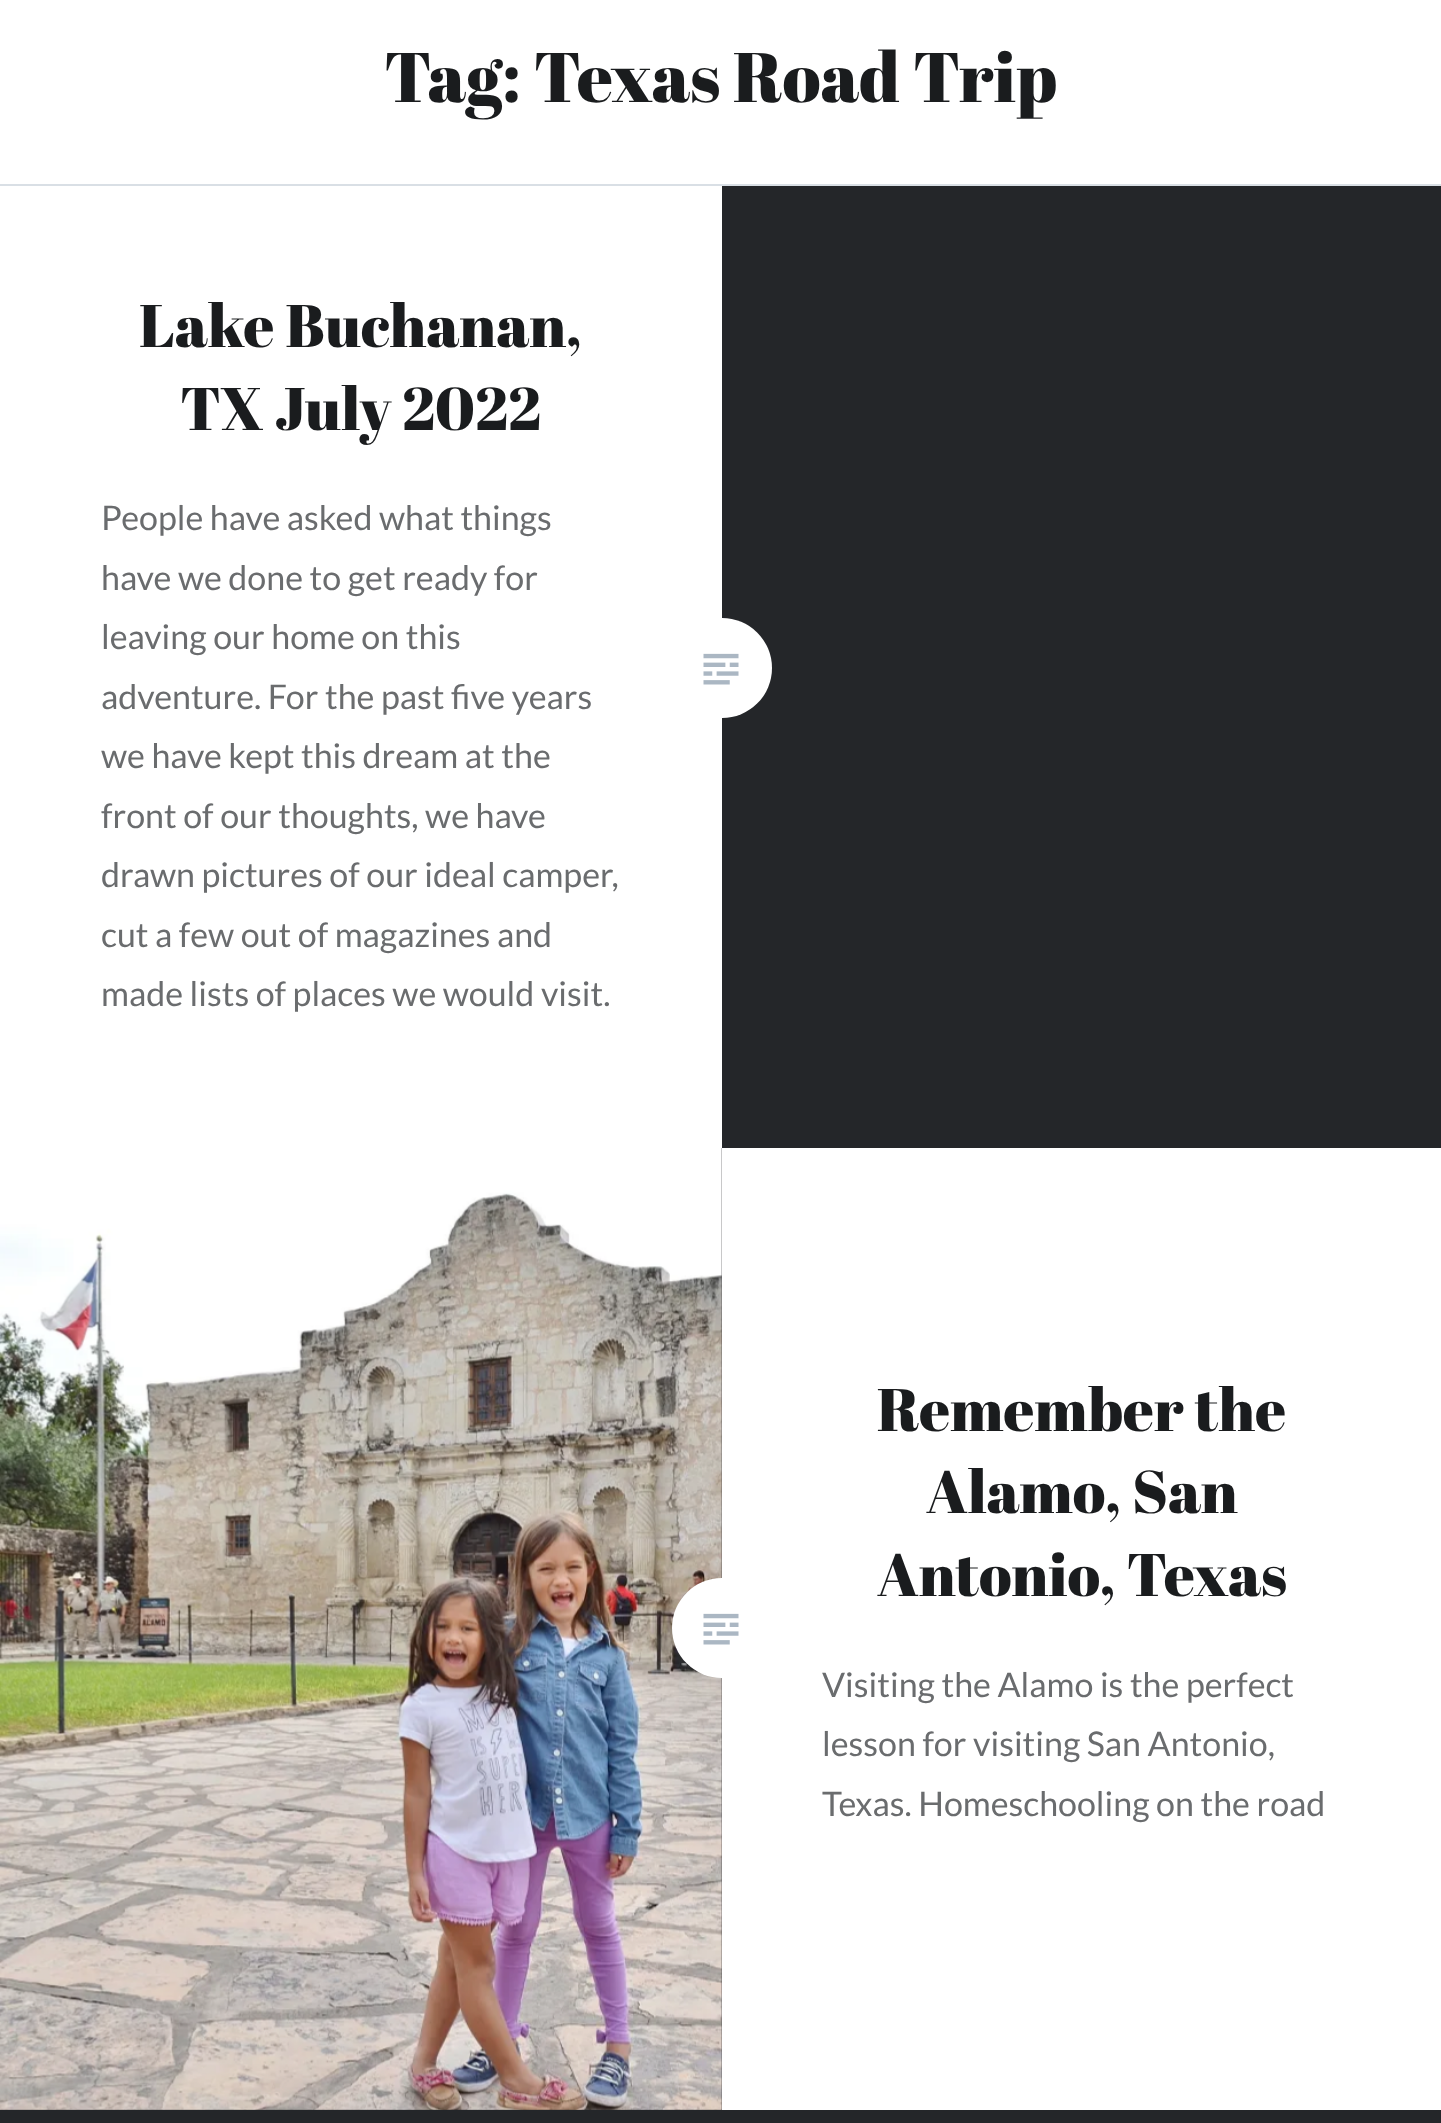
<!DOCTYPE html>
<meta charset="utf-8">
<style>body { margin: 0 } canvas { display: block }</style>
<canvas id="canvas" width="1441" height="2123"></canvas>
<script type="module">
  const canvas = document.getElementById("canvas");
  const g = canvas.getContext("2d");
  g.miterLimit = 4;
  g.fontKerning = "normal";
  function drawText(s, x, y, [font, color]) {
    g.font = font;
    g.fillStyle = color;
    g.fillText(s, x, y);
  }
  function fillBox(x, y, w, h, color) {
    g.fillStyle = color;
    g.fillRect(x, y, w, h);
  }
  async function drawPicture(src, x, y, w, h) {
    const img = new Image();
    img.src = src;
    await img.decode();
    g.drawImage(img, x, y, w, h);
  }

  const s1 = ["70px Abril Fatface", "#1A1C1E"];
  const s2 = ["60px Abril Fatface", "#1A1C1E"];
  const s3 = ["34px Lato", "#6A6C6E"];

  fillBox(0, 0, 1441, 2123, "#FFFFFF");
  fillBox(0, 184, 1441, 2, "#D9DFE5");
  drawText("Tag: Texas Road Trip", 384, 102, s1);
  drawText("Lake Buchanan,", 139, 347, s2);
  drawText("TX July 2022", 180, 430, s2);
  drawText("People have asked what things", 101, 530, s3);
  drawText("have we done to get ready for", 101, 590, s3);
  drawText("leaving our home on this", 101, 649, s3);
  drawText("adventure. For the past five years", 101, 709, s3);
  drawText("we have kept this dream at the", 101, 768, s3);
  drawText("front of our thoughts, we have", 101, 828, s3);
  drawText("drawn pictures of our ideal camper,", 101, 887, s3);
  drawText("cut a few out of magazines and", 101, 947, s3);
  drawText("made lists of places we would visit.", 101, 1006, s3);
  fillBox(722, 186, 719, 962, "#242629");
  g.fillStyle = "#FFFFFF";
  g.beginPath();
  g.arc(722, 668, 50, 0, Math.PI * 2);
  g.fill();
  await drawPicture("pic1.png", 703, 653, 36, 32);
  fillBox(0, 1148, 722, 962, "#242629");
  await drawPicture("pic2.png", 0, 1148, 722, 962);
  g.fillStyle = "#FFFFFF";
  g.beginPath();
  g.arc(722, 1628, 50, 0, Math.PI * 2);
  g.fill();
  drawText("Remember the", 877, 1431, s2);
  drawText("Alamo, San", 926, 1513, s2);
  drawText("Antonio, Texas", 877, 1596, s2);
  drawText("Visiting the Alamo is the perfect", 822, 1697, s3);
  drawText("lesson for visiting San Antonio,", 822, 1756, s3);
  drawText("Texas. Homeschooling on the road", 822, 1816, s3);
  await drawPicture("pic1.png", 703, 1613, 36, 32);
  fillBox(0, 2110, 1441, 13, "#242629");
</script>
